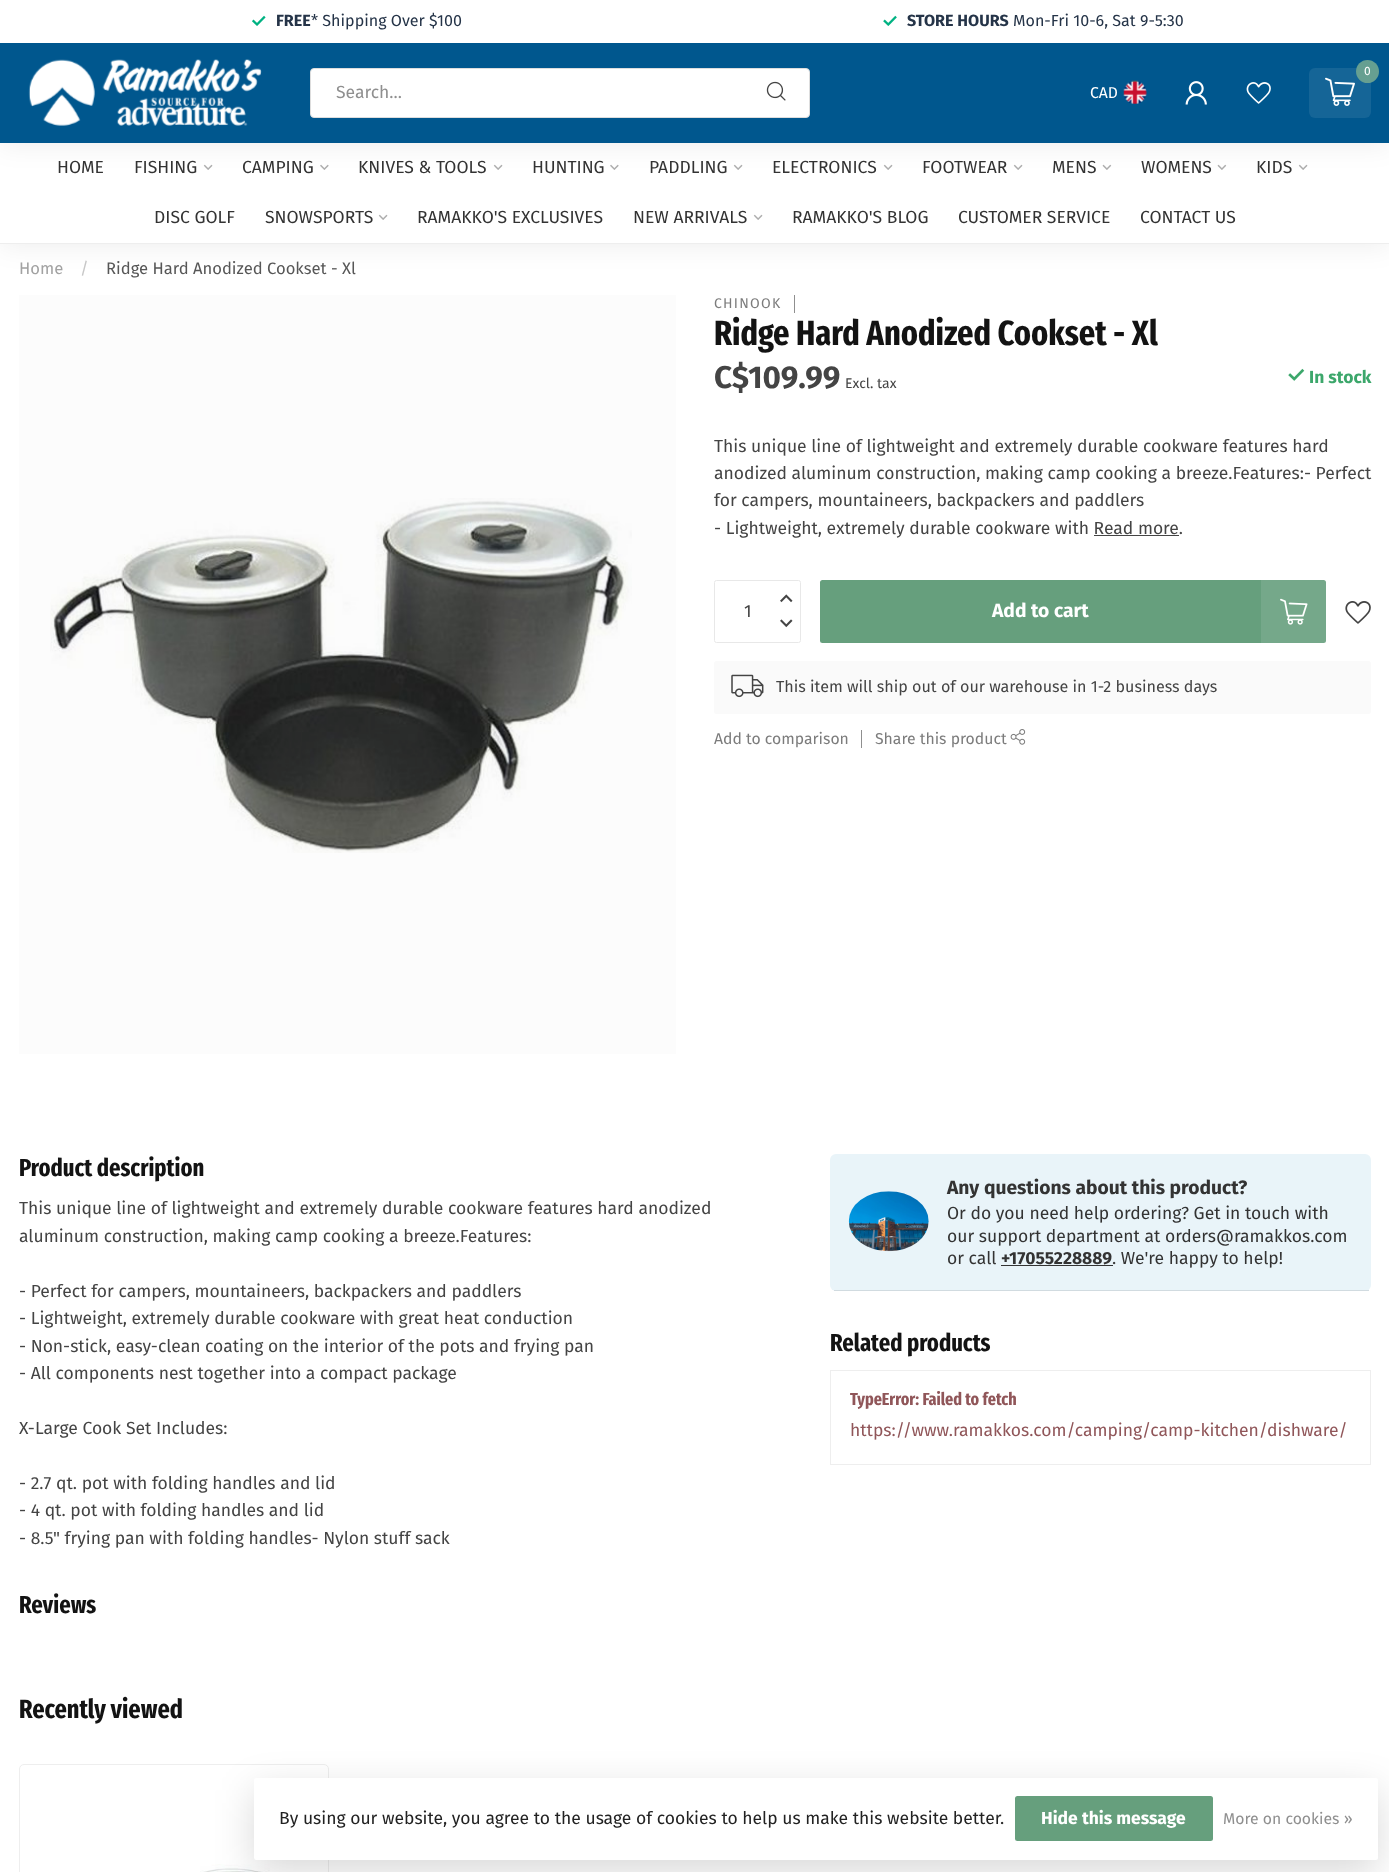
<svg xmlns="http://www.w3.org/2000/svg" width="1389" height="1872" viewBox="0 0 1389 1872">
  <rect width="100%" height="100%" fill="rgb(255,255,255)"/>
  <rect x="19" y="295" width="657" height="759" fill="rgb(252,252,252)"/>
  <rect x="0" y="143" width="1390" height="101" fill="rgba(0,0,0,0.08)" filter="blur(14px)"/>
  <rect x="0" y="143" width="1389" height="100" fill="rgb(255,255,255)"/>
  <image x="203" y="164" width="10" height="6" href="pic9.png"/>
  <image x="320" y="164" width="9" height="6" href="pic10.png"/>
  <image x="493" y="164" width="10" height="6" href="pic9.png"/>
  <image x="610" y="164" width="9" height="6" href="pic10.png"/>
  <image x="733" y="164" width="10" height="6" href="pic9.png"/>
  <image x="883" y="164" width="10" height="6" href="pic9.png"/>
  <image x="1013" y="164" width="10" height="6" href="pic9.png"/>
  <image x="1102" y="164" width="10" height="6" href="pic11.png"/>
  <image x="1217" y="164" width="10" height="6" href="pic11.png"/>
  <image x="1298" y="164" width="10" height="6" href="pic9.png"/>
  <rect x="0" y="0" width="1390" height="143" fill="rgba(0,0,0,0.08)" filter="blur(14px)"/>
  <rect x="0" y="43" width="1389" height="100" fill="rgb(0,87,142)"/>
  <rect x="0" y="0" width="1389" height="43" fill="rgb(255,255,255)"/>
  <image x="252" y="15" width="14" height="11" href="pic1.png"/>
  <text x="276" y="26" font-family="Fira Sans" font-size="16.1" font-weight="bold" fill="rgb(37,52,72)">FREE</text>
  <text x="311" y="26" font-family="Fira Sans" font-size="16.1" fill="rgb(37,52,72)">* Shipping Over $100</text>
  <image x="883" y="15" width="14" height="11" href="pic2.png"/>
  <text x="907" y="26" font-family="Fira Sans" font-size="16.1" font-weight="bold" fill="rgb(37,52,72)">STORE HOURS</text>
  <text x="1013" y="26" font-family="Fira Sans" font-size="16.1" fill="rgb(37,52,72)">Mon-Fri 10-6, Sat 9-5:30</text>
  <image x="28" y="59" width="234" height="67" href="pic3.png"/>
  <rect x="310.5" y="68.5" width="499" height="49" rx="3.5" fill="rgb(255,255,255)" stroke="rgb(221,221,221)"/>
  <text x="336" y="98" font-family="Fira Sans" font-size="17.5" fill="rgb(143,143,143)">Search...</text>
  <image x="766" y="81" width="20" height="20" href="pic4.png"/>
  <rect x="1309" y="68" width="62" height="50" rx="6" fill="rgb(21,101,151)"/>
  <circle cx="1367.5" cy="71.5" r="11.5" fill="rgb(102,159,145)"/>
  <text x="1364" y="75" font-family="Fira Sans" font-size="12" fill="rgb(255,255,255)">0</text>
  <image x="1325" y="77" width="30" height="29" href="pic5.png"/>
  <text x="1090" y="98" font-family="Fira Sans" font-size="15.75" fill="rgb(255,255,255)">CAD</text>
  <image x="1123" y="80" width="24" height="24" href="pic6.png"/>
  <image x="1185" y="81" width="22" height="24" href="pic7.png"/>
  <image x="1246" y="82" width="25" height="22" href="pic8.png"/>
  <rect x="0" y="243" width="1389" height="1" fill="rgb(238,238,238)"/>
  <g font-family="Fira Sans" font-size="17.5" fill="rgb(51,51,51)">
    <text x="57" y="173">HOME</text>
    <text x="134" y="173">FISHING</text>
    <text x="242" y="173">CAMPING</text>
    <text x="358" y="173">KNIVES &amp; TOOLS</text>
    <text x="532" y="173">HUNTING</text>
    <text x="649" y="173">PADDLING</text>
    <text x="772" y="173">ELECTRONICS</text>
    <text x="922" y="173">FOOTWEAR</text>
    <text x="1052" y="173">MENS</text>
    <text x="1141" y="173">WOMENS</text>
    <text x="1256" y="173">KIDS</text>
    <text x="154" y="223">DISC GOLF</text>
    <text x="265" y="223">SNOWSPORTS</text>
  </g>
  <image x="378" y="214" width="10" height="6" href="pic9.png"/>
  <g font-family="Fira Sans" font-size="17.5" fill="rgb(51,51,51)">
    <text x="417" y="223">RAMAKKO'S EXCLUSIVES</text>
    <text x="633" y="223">NEW ARRIVALS</text>
  </g>
  <image x="753" y="214" width="10" height="6" href="pic9.png"/>
  <g font-family="Fira Sans" font-size="17.5" fill="rgb(51,51,51)">
    <text x="792" y="223">RAMAKKO'S BLOG</text>
    <text x="958" y="223">CUSTOMER SERVICE</text>
    <text x="1140" y="223">CONTACT US</text>
  </g>
  <text x="19" y="274" font-family="Fira Sans" font-size="16.6" fill="rgb(162,162,162)">Home</text>
  <text x="80" y="274" font-family="Fira Sans" font-size="16.6" fill="rgb(199,199,199)">/</text>
  <text x="106" y="274" font-family="Fira Sans" font-size="16.6" fill="rgb(87,87,87)">Ridge Hard Anodized Cookset - Xl</text>
  <image x="50" y="498" width="582" height="355" href="pic12.png"/>
  <text x="714" y="308" font-family="Fira Sans" font-size="14" letter-spacing="1.25" fill="rgb(124,124,124)">CHINOOK</text>
  <rect x="794" y="295" width="1" height="18" fill="rgb(143,143,143)"/>
  <text x="714" y="345" font-family="Fira Sans Extra Condensed" font-size="35" font-weight="bold" fill="rgb(19,19,19)">Ridge Hard Anodized Cookset - Xl</text>
  <text x="714" y="388" font-family="Fira Sans" font-size="31.5" font-weight="bold" fill="rgb(68,68,68)">C$109.99</text>
  <text x="845" y="388" font-family="Fira Sans" font-size="14" fill="rgb(68,68,68)">Excl. tax</text>
  <image x="1288" y="368" width="17" height="13" href="pic13.png"/>
  <text x="1309" y="383" font-family="Fira Sans" font-size="17.5" font-weight="bold" fill="rgb(60,167,107)">In stock</text>
  <g font-family="Fira Sans" font-size="17.5" fill="rgb(68,68,68)">
    <text>
      <tspan x="714" y="452">This unique line of lightweight and extremely durable cookware features hard</tspan>
      <tspan x="714" y="479">anodized aluminum construction, making camp cooking a breeze.Features:- Perfect</tspan>
      <tspan x="714" y="506">for campers, mountaineers, backpackers and paddlers</tspan>
      <tspan x="714" y="534">- Lightweight, extremely durable cookware with Read more.</tspan>
    </text>
  </g>
  <rect x="1094" y="535" width="85" height="1" fill="rgb(68,68,68)"/>
  <rect x="714.5" y="580.5" width="86" height="62" rx="2" fill="none" stroke="rgb(232,232,232)"/>
  <image x="780" y="594" width="13" height="9" href="pic14.png"/>
  <text x="744" y="617" font-family="Fira Sans" font-size="17.5" fill="rgb(68,68,68)">1</text>
  <image x="780" y="619" width="13" height="9" href="pic15.png"/>
  <rect x="820" y="580" width="506" height="63" rx="2.5" fill="rgb(102,159,125)"/>
  <text x="992" y="617" font-family="Fira Sans" font-size="19.25" font-weight="bold" fill="rgb(255,255,255)">Add to cart</text>
  <image x="1280" y="598" width="28" height="27" href="pic16.png"/>
  <rect x="1261" y="580" width="65" height="63" fill="rgba(255,255,255,0.1)"/>
  <image x="1345" y="601" width="26" height="23" href="pic17.png"/>
  <rect x="714" y="661" width="657" height="53" rx="2.5" fill="rgb(250,250,250)"/>
  <image x="731" y="674" width="33" height="24" href="pic18.png"/>
  <text x="776" y="692" font-family="Fira Sans" font-size="16.1" fill="rgb(68,68,68)">This item will ship out of our warehouse in 1-2 business days</text>
  <text x="714" y="744" font-family="Fira Sans" font-size="15.75" fill="rgb(124,124,124)">Add to comparison</text>
  <rect x="861" y="730" width="1" height="18" fill="rgb(143,143,143)"/>
  <text x="875" y="744" font-family="Fira Sans" font-size="15.75" fill="rgb(124,124,124)">Share this product</text>
  <image x="1010" y="729" width="16" height="16" href="pic19.png"/>
  <text x="19" y="1176" font-family="Fira Sans Extra Condensed" font-size="24.5" font-weight="bold" fill="rgb(19,19,19)">Product description</text>
  <g font-family="Fira Sans" font-size="17.5" fill="rgb(68,68,68)">
    <text>
      <tspan x="19" y="1214">This unique line of lightweight and extremely durable cookware features hard anodized</tspan>
      <tspan x="19" y="1242">aluminum construction, making camp cooking a breeze.Features:</tspan>
    </text>
    <text>
      <tspan x="19" y="1297">- Perfect for campers, mountaineers, backpackers and paddlers</tspan>
      <tspan x="19" y="1324">- Lightweight, extremely durable cookware with great heat conduction</tspan>
      <tspan x="19" y="1352">- Non-stick, easy-clean coating on the interior of the pots and frying pan</tspan>
      <tspan x="19" y="1379">- All components nest together into a compact package</tspan>
    </text>
    <text x="19" y="1434">X-Large Cook Set Includes:</text>
    <text>
      <tspan x="19" y="1489">- 2.7 qt. pot with folding handles and lid</tspan>
      <tspan x="19" y="1516">- 4 qt. pot with folding handles and lid</tspan>
      <tspan x="19" y="1544">- 8.5" frying pan with folding handles- Nylon stuff sack</tspan>
    </text>
  </g>
  <text x="19" y="1613" font-family="Fira Sans Extra Condensed" font-size="24.5" font-weight="bold" fill="rgb(19,19,19)">Reviews</text>
  <rect x="830" y="1154" width="541" height="137" rx="6" fill="rgb(233,244,249)"/>
  <rect x="834" y="1290" width="535" height="1" fill="rgb(209,219,224)"/>
  <image x="848" y="1191" width="81" height="61" href="pic20.png"/>
  <text x="947" y="1194" font-family="Fira Sans" font-size="19.25" font-weight="bold" fill="rgb(51,51,51)">Any questions about this product?</text>
  <g font-family="Fira Sans" font-size="17.5" fill="rgb(51,51,51)">
    <text>
      <tspan x="947" y="1219">Or do you need help ordering? Get in touch with</tspan>
      <tspan x="947" y="1242">our support department at orders@ramakkos.com</tspan>
      <tspan x="947" y="1264">or call</tspan>
    </text>
  </g>
  <text x="1001" y="1264" font-family="Fira Sans" font-size="17.5" font-weight="bold" fill="rgb(51,51,51)">+17055228889</text>
  <rect x="1001" y="1265" width="112" height="1" fill="rgb(51,51,51)"/>
  <text x="1112" y="1264" font-family="Fira Sans" font-size="17.5" fill="rgb(51,51,51)">. We're happy to help!</text>
  <text x="830" y="1351" font-family="Fira Sans Extra Condensed" font-size="24.5" font-weight="bold" fill="rgb(19,19,19)">Related products</text>
  <rect x="830.5" y="1370.5" width="540" height="94" fill="none" stroke="rgb(238,238,238)"/>
  <text x="850" y="1405" font-family="Fira Sans Extra Condensed" font-size="17.5" font-weight="bold" fill="rgb(144,86,89)">TypeError: Failed to fetch</text>
  <text x="850" y="1436" font-family="Fira Sans" font-size="17.5" fill="rgb(144,86,89)">https://www.ramakkos.com/camping/camp-kitchen/dishware/</text>
  <text x="19" y="1718" font-family="Fira Sans Extra Condensed" font-size="26.25" font-weight="bold" fill="rgb(19,19,19)">Recently viewed</text>
  <rect x="19.5" y="1764.5" width="309" height="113" rx="4.5" fill="none" stroke="rgb(238,238,238)"/>
  <image x="200" y="1864" width="70" height="8" href="pic21.png"/>
  <rect x="254" y="1790" width="1124" height="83" rx="2.5" fill="rgba(0,0,0,0.15)" filter="blur(19px)"/>
  <rect x="254" y="1778" width="1124" height="82" rx="2.5" fill="rgb(255,255,255)"/>
  <text x="279" y="1824" font-family="Fira Sans" font-size="17.5" fill="rgb(34,34,34)">By using our website, you agree to the usage of cookies to help us make this website better.</text>
  <rect x="1015" y="1796" width="198" height="45" rx="2.5" fill="rgb(102,159,125)"/>
  <text x="1041" y="1824" font-family="Fira Sans" font-size="17.5" font-weight="bold" fill="rgb(255,255,255)">Hide this message</text>
  <text x="1223" y="1824" font-family="Fira Sans" font-size="15.75" fill="rgb(143,143,143)">More on cookies »</text>
</svg>
